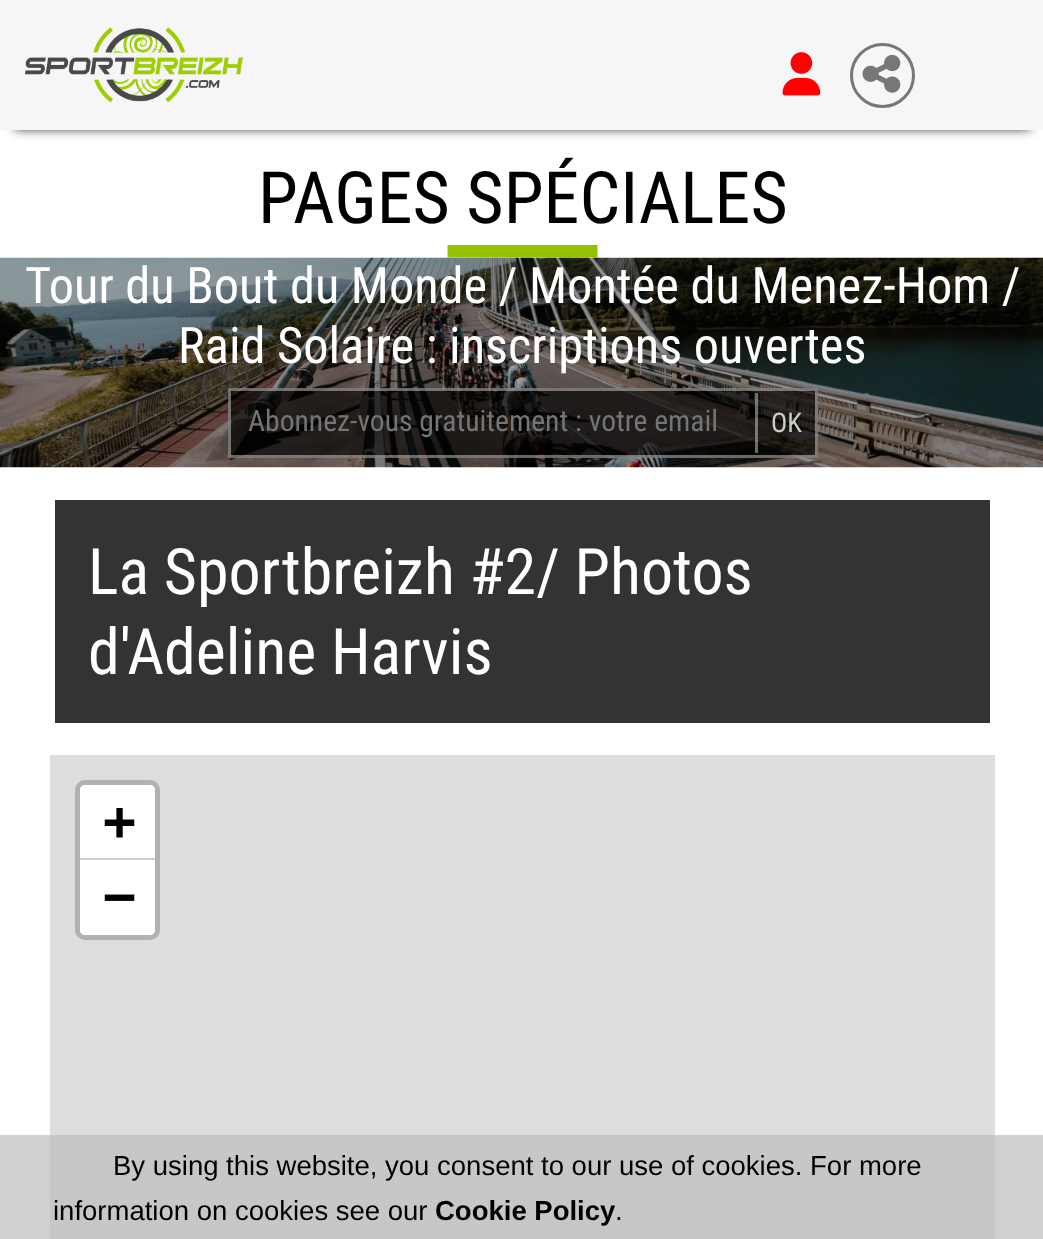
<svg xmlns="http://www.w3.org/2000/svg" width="1043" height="1239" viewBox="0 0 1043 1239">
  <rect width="100%" height="100%" fill="rgb(255,255,255)"/>
  <rect x="0" y="1135" width="1043" height="104" fill="rgb(208,208,208)"/>
  <rect x="15" y="28" width="1015" height="100" fill="rgb(0,0,0)" filter="blur(6px)"/>
  <rect x="0" y="0" width="1043" height="130" fill="rgb(246,246,248)"/>
  <image x="25" y="27" width="218" height="76" href="pic1.png"/>
  <image x="782" y="52" width="39" height="44" href="pic2.png"/>
  <circle cx="882.5" cy="75.5" r="31" fill="none" stroke="rgb(119,119,119)" stroke-width="3"/>
  <image x="862" y="54" width="39" height="39" href="pic3.png"/>
  <image x="447" y="245" width="151" height="13" href="pic4.png"/>
  <text x="258" y="223" font-family="Roboto Condensed" font-size="72" fill="rgb(0,0,0)">PAGES SPÉCIALES</text>
  <image x="0" y="257" width="1043" height="211" href="pic5.png"/>
  <g font-family="Roboto Condensed" font-size="50.4" fill="rgb(255,255,255)">
    <text x="25" y="303">Tour du Bout du Monde / Montée du Menez-Hom /</text>
    <text x="178" y="363">Raid Solaire : inscriptions ouvertes</text>
  </g>
  <rect x="228" y="388" width="590" height="70" fill="rgba(0,0,0,0.65)"/>
  <rect x="229.5" y="389.5" width="587" height="67" fill="none" stroke="rgba(255,255,255,0.4)" stroke-width="3"/>
  <text x="248" y="431" font-family="Roboto Condensed" font-size="29.6" fill="rgb(117,117,117)">Abonnez-vous gratuitement : votre email</text>
  <rect x="755" y="393" width="3" height="60" fill="rgba(255,255,255,0.4)"/>
  <text x="771" y="432" font-family="Roboto Condensed" font-size="27" fill="rgb(204,204,204)">OK</text>
  <rect x="55" y="500" width="935" height="223" fill="rgb(51,51,51)"/>
  <g font-family="Roboto Condensed" font-size="64" fill="rgb(255,255,255)">
    <text>
      <tspan x="88" y="594">La Sportbreizh #2/ Photos</tspan>
      <tspan x="88" y="674">d'Adeline Harvis</tspan>
    </text>
  </g>
  <rect x="50" y="755" width="945" height="380" fill="rgb(221,221,221)"/>
  <rect x="50" y="1135" width="945" height="104" fill="rgb(199,199,199)"/>
  <rect x="77.5" y="782.5" width="80" height="155" rx="7.5" fill="none" stroke="rgb(177,177,177)" stroke-width="5"/>
  <path d="M85 785H150C153 785 155 787 155 790V860H80V790C80 787 82 785 85 785Z" fill="rgb(255,255,255)"/>
  <rect x="80" y="858" width="75" height="2" fill="rgb(204,204,204)"/>
  <text x="103" y="840" font-family="DejaVu Sans Mono" font-size="55" font-weight="bold" fill="rgb(0,0,0)">+</text>
  <path d="M80 860H155V930C155 933 153 935 150 935H85C82 935 80 933 80 930Z" fill="rgb(255,255,255)"/>
  <text x="103" y="915" font-family="DejaVu Sans Mono" font-size="55" font-weight="bold" fill="rgb(0,0,0)">−</text>
  <g font-family="Liberation Sans" font-size="27.5" fill="rgb(0,0,0)">
    <text x="113" y="1175">By using this website, you consent to our use of cookies. For more</text>
    <text x="53" y="1220">information on cookies see our</text>
  </g>
  <text x="435" y="1220" font-family="Liberation Sans" font-size="27.5" font-weight="bold" fill="rgb(0,0,0)">Cookie Policy</text>
  <text x="615" y="1220" font-family="Liberation Sans" font-size="27.5" fill="rgb(0,0,0)">.</text>
</svg>
